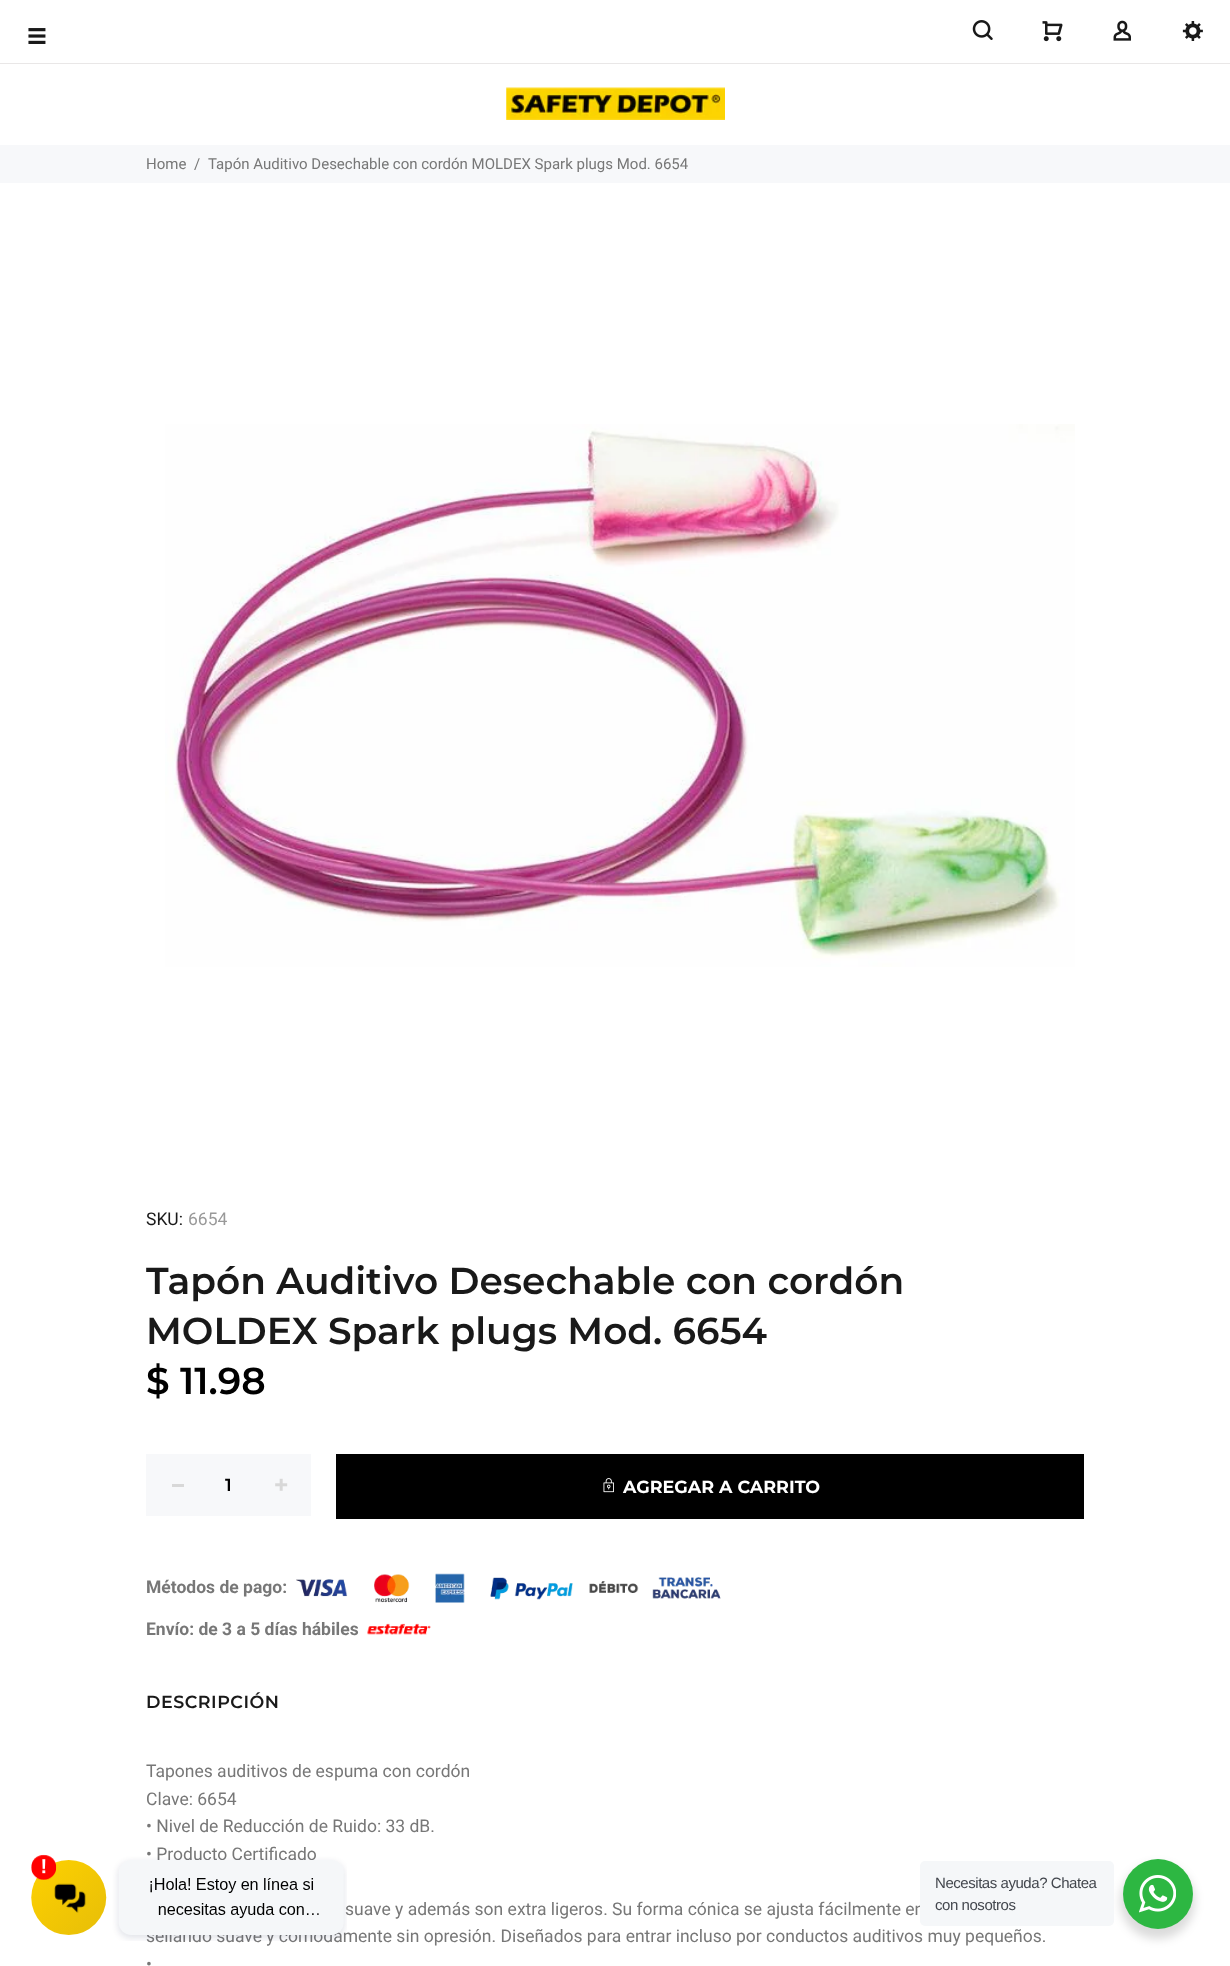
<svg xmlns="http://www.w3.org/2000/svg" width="1230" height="1966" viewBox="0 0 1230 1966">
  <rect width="100%" height="100%" fill="rgb(255,255,255)"/>
  <image x="28" y="28" width="18" height="16" href="pic1.png"/>
  <image x="972" y="20" width="21" height="20" href="pic2.png"/>
  <image x="1042" y="21" width="21" height="21" href="pic3.png"/>
  <image x="1113" y="20" width="18" height="21" href="pic4.png"/>
  <image x="1182" y="21" width="21" height="20" href="pic5.png"/>
  <rect x="0" y="63" width="1230" height="1" fill="rgb(233,231,231)"/>
  <image x="506" y="87" width="219" height="33" href="pic6.png"/>
  <rect x="0" y="145" width="1230" height="38" fill="rgb(247,248,250)"/>
  <g font-family="Roboto" font-size="15" fill="rgb(119,119,119)">
    <text x="146" y="169">Home</text>
    <text x="194" y="169">/</text>
    <text x="208" y="169">Tapón Auditivo Desechable con cordón MOLDEX Spark plugs Mod. 6654</text>
  </g>
  <image x="165" y="424" width="910" height="543" href="pic7.png"/>
  <text x="146" y="1225" font-family="Roboto" font-size="17.5" fill="rgb(25,25,25)">SKU:</text>
  <text x="188" y="1225" font-family="Roboto" font-size="17.5" fill="rgb(153,153,153)">6654</text>
  <g font-family="Montserrat" font-size="37.5" font-weight="600" fill="rgb(25,25,25)">
    <text>
      <tspan x="146" y="1294">Tapón Auditivo Desechable con cordón</tspan>
      <tspan x="146" y="1344">MOLDEX Spark plugs Mod. 6654</tspan>
    </text>
  </g>
  <text x="146" y="1394" font-family="Montserrat" font-size="37.5" font-weight="600" fill="rgb(0,0,0)">$ 11.98</text>
  <rect x="146" y="1454" width="165" height="62" fill="rgb(247,248,250)"/>
  <rect x="172" y="1484" width="12" height="3" fill="rgb(216,216,216)"/>
  <text x="225" y="1491" font-family="Montserrat" font-size="17.5" font-weight="600" fill="rgb(0,0,0)">1</text>
  <image x="275" y="1478" width="13" height="13" href="pic8.png"/>
  <rect x="336" y="1454" width="748" height="65" fill="rgb(0,0,0)"/>
  <image x="603" y="1478" width="11" height="15" href="pic9.png"/>
  <text x="623" y="1493" font-family="Montserrat" font-size="17.5" font-weight="bold" fill="rgb(255,255,255)">AGREGAR A CARRITO</text>
  <text x="146" y="1593" font-family="Roboto" font-size="17.5" font-weight="bold" fill="rgb(119,119,119)">Métodos de pago:</text>
  <image x="296" y="1573" width="425" height="30" href="pic10.png"/>
  <text x="146" y="1635" font-family="Roboto" font-size="17.5" font-weight="bold" fill="rgb(119,119,119)">Envío: de 3 a 5 días hábiles</text>
  <image x="367" y="1623" width="64" height="12" href="pic11.png"/>
  <text x="146" y="1708" font-family="Montserrat" font-size="17.5" font-weight="600" letter-spacing="0.5" fill="rgb(25,25,25)">DESCRIPCIÓN</text>
  <g font-family="Roboto" font-size="17.5" fill="rgb(119,119,119)">
    <text>
      <tspan x="146" y="1777">Tapones auditivos de espuma con cordón</tspan>
      <tspan x="146" y="1805">Clave: 6654</tspan>
      <tspan x="146" y="1832">• Nivel de Reducción de Ruido: 33 dB.</tspan>
      <tspan x="146" y="1860">• Producto Certificado</tspan>
    </text>
    <text x="345" y="1915">suave y además son extra ligeros. Su forma cónica se ajusta fácilmente en</text>
    <text>
      <tspan x="146" y="1942">sellando suave y cómodamente sin opresión. Diseñados para entrar incluso por conductos auditivos muy pequeños.</tspan>
      <tspan x="146" y="1970">•</tspan>
    </text>
  </g>
  <image x="31" y="1854" width="316" height="87" href="pic12.png"/>
  <rect x="1120" y="1864" width="75" height="75" rx="37.5" fill="rgba(0,0,0,0.14)" filter="blur(5px)"/>
  <rect x="920" y="1861" width="194" height="65" rx="5" fill="rgb(245,247,249)"/>
  <g font-family="Liberation Sans" font-size="15" letter-spacing="-0.45" fill="rgb(67,71,78)">
    <text>
      <tspan x="935" y="1888">Necesitas ayuda? Chatea</tspan>
      <tspan x="935" y="1910">con nosotros</tspan>
    </text>
  </g>
  <circle cx="1158" cy="1894" r="35" fill="rgb(45,183,66)"/>
  <image x="1139" y="1875" width="37" height="38" href="pic13.png"/>
</svg>
